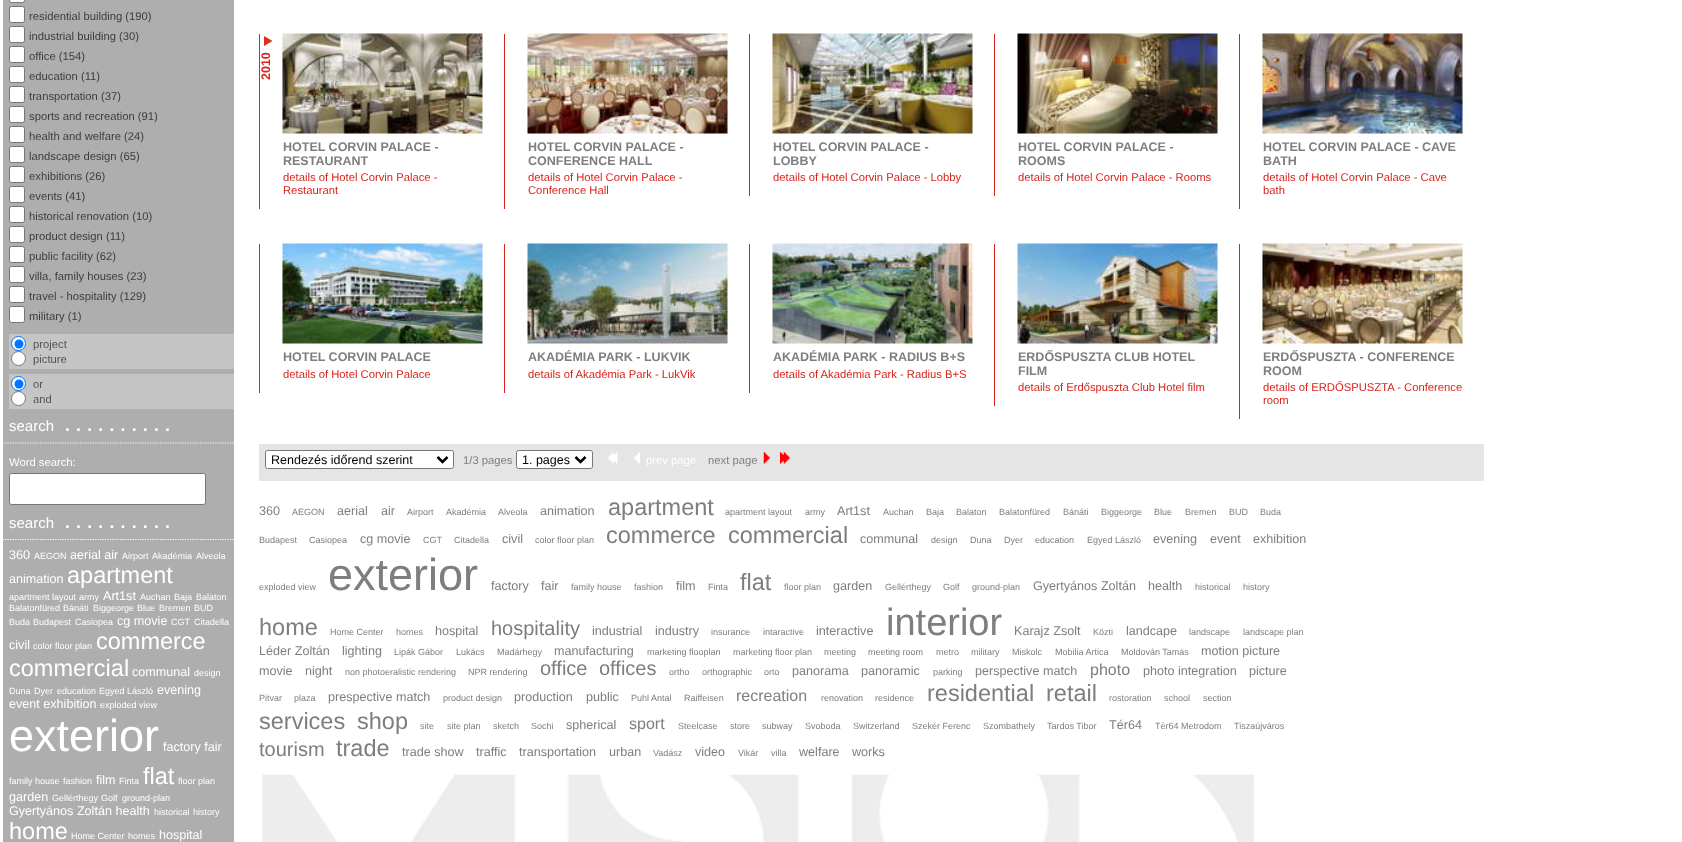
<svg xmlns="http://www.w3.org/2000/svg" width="1682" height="842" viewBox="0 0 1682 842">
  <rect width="100%" height="100%" fill="rgb(255,255,255)"/>
  <rect x="3" y="0" width="231" height="842" fill="rgb(174,174,174)"/>
  <path d="M2.5 443H234" fill="none" stroke="rgb(255,255,255)" stroke-width="1.2" stroke-dasharray="1.25 1.25"/>
  <rect x="9.5" y="-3.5" width="15" height="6" rx="2" fill="rgb(255,255,255)" stroke="rgb(118,118,118)"/>
  <rect x="9.5" y="6.5" width="15" height="16" rx="2" fill="rgb(255,255,255)" stroke="rgb(118,118,118)"/>
  <text x="29" y="20" font-family="Liberation Sans" font-size="11.25" fill="rgb(61,61,61)">residential building (190)</text>
  <rect x="9.5" y="26.5" width="15" height="16" rx="2" fill="rgb(255,255,255)" stroke="rgb(118,118,118)"/>
  <text x="29" y="40" font-family="Liberation Sans" font-size="11.25" fill="rgb(61,61,61)">industrial building (30)</text>
  <rect x="9.5" y="46.5" width="15" height="16" rx="2" fill="rgb(255,255,255)" stroke="rgb(118,118,118)"/>
  <text x="29" y="60" font-family="Liberation Sans" font-size="11.25" fill="rgb(61,61,61)">office (154)</text>
  <rect x="9.5" y="66.5" width="15" height="16" rx="2" fill="rgb(255,255,255)" stroke="rgb(118,118,118)"/>
  <text x="29" y="80" font-family="Liberation Sans" font-size="11.25" fill="rgb(61,61,61)">education (11)</text>
  <rect x="9.5" y="86.5" width="15" height="16" rx="2" fill="rgb(255,255,255)" stroke="rgb(118,118,118)"/>
  <text x="29" y="100" font-family="Liberation Sans" font-size="11.25" fill="rgb(61,61,61)">transportation (37)</text>
  <rect x="9.5" y="106.5" width="15" height="16" rx="2" fill="rgb(255,255,255)" stroke="rgb(118,118,118)"/>
  <text x="29" y="120" font-family="Liberation Sans" font-size="11.25" fill="rgb(61,61,61)">sports and recreation (91)</text>
  <rect x="9.5" y="126.5" width="15" height="16" rx="2" fill="rgb(255,255,255)" stroke="rgb(118,118,118)"/>
  <text x="29" y="140" font-family="Liberation Sans" font-size="11.25" fill="rgb(61,61,61)">health and welfare (24)</text>
  <rect x="9.5" y="146.5" width="15" height="16" rx="2" fill="rgb(255,255,255)" stroke="rgb(118,118,118)"/>
  <text x="29" y="160" font-family="Liberation Sans" font-size="11.25" fill="rgb(61,61,61)">landscape design (65)</text>
  <rect x="9.5" y="166.5" width="15" height="16" rx="2" fill="rgb(255,255,255)" stroke="rgb(118,118,118)"/>
  <text x="29" y="180" font-family="Liberation Sans" font-size="11.25" fill="rgb(61,61,61)">exhibitions (26)</text>
  <rect x="9.5" y="186.5" width="15" height="16" rx="2" fill="rgb(255,255,255)" stroke="rgb(118,118,118)"/>
  <text x="29" y="200" font-family="Liberation Sans" font-size="11.25" fill="rgb(61,61,61)">events (41)</text>
  <rect x="9.5" y="206.5" width="15" height="16" rx="2" fill="rgb(255,255,255)" stroke="rgb(118,118,118)"/>
  <text x="29" y="220" font-family="Liberation Sans" font-size="11.25" fill="rgb(61,61,61)">historical renovation (10)</text>
  <rect x="9.5" y="226.5" width="15" height="16" rx="2" fill="rgb(255,255,255)" stroke="rgb(118,118,118)"/>
  <text x="29" y="240" font-family="Liberation Sans" font-size="11.25" fill="rgb(61,61,61)">product design (11)</text>
  <rect x="9.5" y="246.5" width="15" height="16" rx="2" fill="rgb(255,255,255)" stroke="rgb(118,118,118)"/>
  <text x="29" y="260" font-family="Liberation Sans" font-size="11.25" fill="rgb(61,61,61)">public facility (62)</text>
  <rect x="9.5" y="266.5" width="15" height="16" rx="2" fill="rgb(255,255,255)" stroke="rgb(118,118,118)"/>
  <text x="29" y="280" font-family="Liberation Sans" font-size="11.25" fill="rgb(61,61,61)">villa, family houses (23)</text>
  <rect x="9.5" y="286.5" width="15" height="16" rx="2" fill="rgb(255,255,255)" stroke="rgb(118,118,118)"/>
  <text x="29" y="300" font-family="Liberation Sans" font-size="11.25" fill="rgb(61,61,61)">travel - hospitality (129)</text>
  <rect x="9.5" y="306.5" width="15" height="16" rx="2" fill="rgb(255,255,255)" stroke="rgb(118,118,118)"/>
  <text x="29" y="320" font-family="Liberation Sans" font-size="11.25" fill="rgb(61,61,61)">military (1)</text>
  <rect x="9" y="334" width="225" height="35" fill="rgb(197,197,197)"/>
  <circle cx="18.5" cy="343.5" r="7" fill="rgb(255,255,255)" stroke="rgb(0,117,255)"/>
  <circle cx="19" cy="344" r="4.5" fill="rgb(0,117,255)"/>
  <text x="33" y="348" font-family="Liberation Sans" font-size="11.25" fill="rgb(84,84,84)">project</text>
  <circle cx="18.5" cy="358.5" r="7" fill="rgb(255,255,255)" stroke="rgb(118,118,118)"/>
  <text x="33" y="363" font-family="Liberation Sans" font-size="11.25" fill="rgb(84,84,84)">picture</text>
  <rect x="9" y="374" width="225" height="35" fill="rgb(197,197,197)"/>
  <circle cx="18.5" cy="383.5" r="7" fill="rgb(255,255,255)" stroke="rgb(0,117,255)"/>
  <circle cx="19" cy="384" r="4.5" fill="rgb(0,117,255)"/>
  <text x="33" y="388" font-family="Liberation Sans" font-size="11.25" fill="rgb(84,84,84)">or</text>
  <circle cx="18.5" cy="398.5" r="7" fill="rgb(255,255,255)" stroke="rgb(118,118,118)"/>
  <text x="33" y="403" font-family="Liberation Sans" font-size="11.25" fill="rgb(84,84,84)">and</text>
  <text x="9" y="431" font-family="Liberation Sans" font-size="15" fill="rgb(255,255,255)">search</text>
  <text x="65" y="431" font-family="Liberation Sans" font-size="17.5" font-weight="bold" letter-spacing="6.25" fill="rgb(255,255,255)">..........</text>
  <path d="M2.5 539.5H234" fill="none" stroke="rgb(255,255,255)" stroke-width="1.2" stroke-dasharray="1.25 1.25"/>
  <text x="9" y="466" font-family="Liberation Sans" font-size="11.25" fill="rgb(255,255,255)">Word search:</text>
  <rect x="9.5" y="473.5" width="196" height="31" rx="2" fill="rgb(255,255,255)" stroke="rgb(118,118,118)"/>
  <text x="9" y="528" font-family="Liberation Sans" font-size="15" fill="rgb(255,255,255)">search</text>
  <text x="65" y="528" font-family="Liberation Sans" font-size="17.5" font-weight="bold" letter-spacing="6.25" fill="rgb(255,255,255)">..........</text>
  <text x="9" y="559" font-family="Liberation Sans" font-size="12.6" fill="rgb(255,255,255)">360</text>
  <text x="34" y="559" font-family="Liberation Sans" font-size="9" fill="rgb(255,255,255)">AEGON</text>
  <text x="70" y="559" font-family="Liberation Sans" font-size="12.6" fill="rgb(255,255,255)">aerial air</text>
  <g font-family="Liberation Sans" font-size="9" fill="rgb(255,255,255)">
    <text x="122" y="559">Airport</text>
    <text x="152" y="559">Akadémia</text>
    <text x="196" y="559">Alveola</text>
  </g>
  <text x="9" y="583" font-family="Liberation Sans" font-size="12.6" fill="rgb(255,255,255)">animation</text>
  <text x="67" y="583" font-family="Liberation Sans" font-size="23.5" fill="rgb(255,255,255)">apartment</text>
  <g font-family="Liberation Sans" font-size="9" fill="rgb(255,255,255)">
    <text x="9" y="600">apartment layout</text>
    <text x="79" y="600">army</text>
  </g>
  <text x="103" y="600" font-family="Liberation Sans" font-size="12.6" fill="rgb(255,255,255)">Art1st</text>
  <g font-family="Liberation Sans" font-size="9" fill="rgb(255,255,255)">
    <text x="140" y="600">Auchan</text>
    <text x="174" y="600">Baja</text>
    <text x="196" y="600">Balaton</text>
    <text x="9" y="611">Balatonfüred</text>
    <text x="63" y="611">Bánáti</text>
    <text x="93" y="611">Biggeorge</text>
    <text x="137" y="611">Blue</text>
    <text x="159" y="611">Bremen</text>
    <text x="194" y="611">BUD</text>
    <text x="9" y="625">Buda</text>
    <text x="33" y="625">Budapest</text>
    <text x="75" y="625">Casiopea</text>
  </g>
  <text x="117" y="625" font-family="Liberation Sans" font-size="12.6" fill="rgb(255,255,255)">cg movie</text>
  <g font-family="Liberation Sans" font-size="9" fill="rgb(255,255,255)">
    <text x="171" y="625">CGT</text>
    <text x="194" y="625">Citadella</text>
  </g>
  <text x="9" y="649" font-family="Liberation Sans" font-size="12.6" fill="rgb(255,255,255)">civil</text>
  <text x="33" y="649" font-family="Liberation Sans" font-size="9" fill="rgb(255,255,255)">color floor plan</text>
  <g font-family="Liberation Sans" font-size="23.5" fill="rgb(255,255,255)">
    <text x="96" y="649">commerce</text>
    <text x="9" y="676">commercial</text>
  </g>
  <text x="132" y="676" font-family="Liberation Sans" font-size="12.6" fill="rgb(255,255,255)">communal</text>
  <g font-family="Liberation Sans" font-size="9" fill="rgb(255,255,255)">
    <text x="194" y="676">design</text>
    <text x="9" y="694">Duna</text>
    <text x="34" y="694">Dyer</text>
    <text x="57" y="694">education</text>
    <text x="99" y="694">Egyed László</text>
  </g>
  <g font-family="Liberation Sans" font-size="12.6" fill="rgb(255,255,255)">
    <text x="157" y="694">evening</text>
    <text x="9" y="708">event exhibition</text>
  </g>
  <text x="100" y="708" font-family="Liberation Sans" font-size="9" fill="rgb(255,255,255)">exploded view</text>
  <text x="9" y="751" font-family="Liberation Sans" font-size="45" fill="rgb(255,255,255)">exterior</text>
  <text x="163" y="751" font-family="Liberation Sans" font-size="12.6" fill="rgb(255,255,255)">factory fair</text>
  <g font-family="Liberation Sans" font-size="9" fill="rgb(255,255,255)">
    <text x="9" y="784">family house</text>
    <text x="63" y="784">fashion</text>
  </g>
  <text x="96" y="784" font-family="Liberation Sans" font-size="12.6" fill="rgb(255,255,255)">film</text>
  <text x="119" y="784" font-family="Liberation Sans" font-size="9" fill="rgb(255,255,255)">Finta</text>
  <text x="143" y="784" font-family="Liberation Sans" font-size="23.5" fill="rgb(255,255,255)">flat</text>
  <text x="178" y="784" font-family="Liberation Sans" font-size="9" fill="rgb(255,255,255)">floor plan</text>
  <text x="9" y="801" font-family="Liberation Sans" font-size="12.6" fill="rgb(255,255,255)">garden</text>
  <g font-family="Liberation Sans" font-size="9" fill="rgb(255,255,255)">
    <text x="52" y="801">Gellérthegy</text>
    <text x="101" y="801">Golf</text>
    <text x="122" y="801">ground-plan</text>
  </g>
  <text x="9" y="815" font-family="Liberation Sans" font-size="12.6" fill="rgb(255,255,255)">Gyertyános Zoltán health</text>
  <g font-family="Liberation Sans" font-size="9" fill="rgb(255,255,255)">
    <text x="154" y="815">historical</text>
    <text x="193" y="815">history</text>
  </g>
  <text x="9" y="839" font-family="Liberation Sans" font-size="23.5" fill="rgb(255,255,255)">home</text>
  <g font-family="Liberation Sans" font-size="9" fill="rgb(255,255,255)">
    <text x="71" y="839">Home Center</text>
    <text x="128" y="839">homes</text>
  </g>
  <text x="159" y="839" font-family="Liberation Sans" font-size="12.6" fill="rgb(255,255,255)">hospital</text>
  <rect x="259" y="34" width="1" height="175" fill="rgb(217,34,26)"/>
  <path d="M264 46V36L272.5 41Z" fill="rgb(217,50,26)"/>
  <image x="282" y="33" width="201" height="101" href="pic1.png"/>
  <text x="270" y="80" transform="rotate(-90 270 80)" font-family="Liberation Sans" font-size="12.5" font-weight="bold" fill="rgb(217,34,26)">2010</text>
  <g font-family="Liberation Sans" font-size="12.5" font-weight="bold" fill="rgb(126,126,126)">
    <text>
      <tspan x="283" y="151">HOTEL CORVIN PALACE -</tspan>
      <tspan x="283" y="165">RESTAURANT</tspan>
    </text>
  </g>
  <g font-family="Liberation Sans" font-size="11.25" fill="rgb(217,34,26)">
    <text>
      <tspan x="283" y="181">details of Hotel Corvin Palace -</tspan>
      <tspan x="283" y="194">Restaurant</tspan>
    </text>
  </g>
  <rect x="504" y="34" width="1" height="175" fill="rgb(217,34,26)"/>
  <image x="527" y="33" width="201" height="101" href="pic2.png"/>
  <g font-family="Liberation Sans" font-size="12.5" font-weight="bold" fill="rgb(126,126,126)">
    <text>
      <tspan x="528" y="151">HOTEL CORVIN PALACE -</tspan>
      <tspan x="528" y="165">CONFERENCE HALL</tspan>
    </text>
  </g>
  <g font-family="Liberation Sans" font-size="11.25" fill="rgb(217,34,26)">
    <text>
      <tspan x="528" y="181">details of Hotel Corvin Palace -</tspan>
      <tspan x="528" y="194">Conference Hall</tspan>
    </text>
  </g>
  <rect x="749" y="34" width="1" height="162" fill="rgb(217,34,26)"/>
  <image x="772" y="33" width="201" height="101" href="pic3.png"/>
  <g font-family="Liberation Sans" font-size="12.5" font-weight="bold" fill="rgb(126,126,126)">
    <text>
      <tspan x="773" y="151">HOTEL CORVIN PALACE -</tspan>
      <tspan x="773" y="165">LOBBY</tspan>
    </text>
  </g>
  <text x="773" y="181" font-family="Liberation Sans" font-size="11.25" fill="rgb(217,34,26)">details of Hotel Corvin Palace - Lobby</text>
  <rect x="994" y="34" width="1" height="162" fill="rgb(217,34,26)"/>
  <image x="1017" y="33" width="201" height="101" href="pic4.png"/>
  <g font-family="Liberation Sans" font-size="12.5" font-weight="bold" fill="rgb(126,126,126)">
    <text>
      <tspan x="1018" y="151">HOTEL CORVIN PALACE -</tspan>
      <tspan x="1018" y="165">ROOMS</tspan>
    </text>
  </g>
  <text x="1018" y="181" font-family="Liberation Sans" font-size="11.25" fill="rgb(217,34,26)">details of Hotel Corvin Palace - Rooms</text>
  <rect x="1239" y="34" width="1" height="175" fill="rgb(217,34,26)"/>
  <image x="1262" y="33" width="201" height="101" href="pic5.png"/>
  <g font-family="Liberation Sans" font-size="12.5" font-weight="bold" fill="rgb(126,126,126)">
    <text>
      <tspan x="1263" y="151">HOTEL CORVIN PALACE - CAVE</tspan>
      <tspan x="1263" y="165">BATH</tspan>
    </text>
  </g>
  <g font-family="Liberation Sans" font-size="11.25" fill="rgb(217,34,26)">
    <text>
      <tspan x="1263" y="181">details of Hotel Corvin Palace - Cave</tspan>
      <tspan x="1263" y="194">bath</tspan>
    </text>
  </g>
  <rect x="259" y="244" width="1" height="149" fill="rgb(217,34,26)"/>
  <image x="282" y="243" width="201" height="101" href="pic6.png"/>
  <text x="283" y="361" font-family="Liberation Sans" font-size="12.5" font-weight="bold" fill="rgb(126,126,126)">HOTEL CORVIN PALACE</text>
  <text x="283" y="378" font-family="Liberation Sans" font-size="11.25" fill="rgb(217,34,26)">details of Hotel Corvin Palace</text>
  <rect x="504" y="244" width="1" height="149" fill="rgb(217,34,26)"/>
  <image x="527" y="243" width="201" height="101" href="pic7.png"/>
  <text x="528" y="361" font-family="Liberation Sans" font-size="12.5" font-weight="bold" fill="rgb(126,126,126)">AKADÉMIA PARK - LUKVIK</text>
  <text x="528" y="378" font-family="Liberation Sans" font-size="11.25" fill="rgb(217,34,26)">details of Akadémia Park - LukVik</text>
  <rect x="749" y="244" width="1" height="149" fill="rgb(217,34,26)"/>
  <image x="772" y="243" width="201" height="101" href="pic8.png"/>
  <text x="773" y="361" font-family="Liberation Sans" font-size="12.5" font-weight="bold" fill="rgb(126,126,126)">AKADÉMIA PARK - RADIUS B+S</text>
  <text x="773" y="378" font-family="Liberation Sans" font-size="11.25" fill="rgb(217,34,26)">details of Akadémia Park - Radius B+S</text>
  <rect x="994" y="244" width="1" height="162" fill="rgb(217,34,26)"/>
  <image x="1017" y="243" width="201" height="101" href="pic9.png"/>
  <g font-family="Liberation Sans" font-size="12.5" font-weight="bold" fill="rgb(126,126,126)">
    <text>
      <tspan x="1018" y="361">ERDŐSPUSZTA CLUB HOTEL</tspan>
      <tspan x="1018" y="375">FILM</tspan>
    </text>
  </g>
  <text x="1018" y="391" font-family="Liberation Sans" font-size="11.25" fill="rgb(217,34,26)">details of Erdőspuszta Club Hotel film</text>
  <rect x="1239" y="244" width="1" height="175" fill="rgb(217,34,26)"/>
  <image x="1262" y="243" width="201" height="101" href="pic10.png"/>
  <g font-family="Liberation Sans" font-size="12.5" font-weight="bold" fill="rgb(126,126,126)">
    <text>
      <tspan x="1263" y="361">ERDŐSPUSZTA - CONFERENCE</tspan>
      <tspan x="1263" y="375">ROOM</tspan>
    </text>
  </g>
  <g font-family="Liberation Sans" font-size="11.25" fill="rgb(217,34,26)">
    <text>
      <tspan x="1263" y="391">details of ERDŐSPUSZTA - Conference</tspan>
      <tspan x="1263" y="404">room</tspan>
    </text>
  </g>
  <rect x="259" y="444" width="1225" height="37" fill="rgb(229,229,229)"/>
  <rect x="265.5" y="450.5" width="188" height="18" rx="2" fill="rgb(255,255,255)" stroke="rgb(118,118,118)"/>
  <path d="M437.5 457L442.5 462L447.5 457" fill="none" stroke="rgb(0,0,0)" stroke-width="2.5"/>
  <text x="271" y="464" font-family="Liberation Sans" font-size="12.5" fill="rgb(0,0,0)">Rendezés időrend szerint</text>
  <text x="463" y="464" font-family="Liberation Sans" font-size="11.25" fill="rgb(126,126,126)">1/3 pages</text>
  <rect x="516.5" y="450.5" width="76" height="18" rx="2" fill="rgb(255,255,255)" stroke="rgb(118,118,118)"/>
  <path d="M575.5 457L580.5 462L585.5 457" fill="none" stroke="rgb(0,0,0)" stroke-width="2.5"/>
  <text x="522" y="464" font-family="Liberation Sans" font-size="12.5" fill="rgb(0,0,0)">1. pages</text>
  <image x="607" y="452" width="11" height="12" href="pic11.png"/>
  <image x="633" y="452" width="7" height="12" href="pic12.png"/>
  <text x="646" y="464" font-family="Liberation Sans" font-size="11.25" fill="rgb(255,255,255)">prev page</text>
  <text x="708" y="464" font-family="Liberation Sans" font-size="11.25" fill="rgb(126,126,126)">next page</text>
  <image x="763" y="452" width="7" height="12" href="pic13.png"/>
  <image x="780" y="452" width="10" height="12" href="pic14.png"/>
  <text x="259" y="515" font-family="Liberation Sans" font-size="12.6" fill="rgb(126,126,126)">360</text>
  <text x="292" y="515" font-family="Liberation Sans" font-size="9" fill="rgb(126,126,126)">AEGON</text>
  <g font-family="Liberation Sans" font-size="12.6" fill="rgb(126,126,126)">
    <text x="337" y="515">aerial</text>
    <text x="381" y="515">air</text>
  </g>
  <g font-family="Liberation Sans" font-size="9" fill="rgb(126,126,126)">
    <text x="407" y="515">Airport</text>
    <text x="446" y="515">Akadémia</text>
    <text x="498" y="515">Alveola</text>
  </g>
  <text x="540" y="515" font-family="Liberation Sans" font-size="12.6" fill="rgb(126,126,126)">animation</text>
  <text x="608" y="515" font-family="Liberation Sans" font-size="23.5" fill="rgb(126,126,126)">apartment</text>
  <g font-family="Liberation Sans" font-size="9" fill="rgb(126,126,126)">
    <text x="725" y="515">apartment layout</text>
    <text x="805" y="515">army</text>
  </g>
  <text x="837" y="515" font-family="Liberation Sans" font-size="12.6" fill="rgb(126,126,126)">Art1st</text>
  <g font-family="Liberation Sans" font-size="9" fill="rgb(126,126,126)">
    <text x="883" y="515">Auchan</text>
    <text x="926" y="515">Baja</text>
    <text x="956" y="515">Balaton</text>
    <text x="999" y="515">Balatonfüred</text>
    <text x="1063" y="515">Bánáti</text>
    <text x="1101" y="515">Biggeorge</text>
    <text x="1154" y="515">Blue</text>
    <text x="1185" y="515">Bremen</text>
    <text x="1229" y="515">BUD</text>
    <text x="1260" y="515">Buda</text>
    <text x="259" y="543">Budapest</text>
    <text x="309" y="543">Casiopea</text>
  </g>
  <text x="360" y="543" font-family="Liberation Sans" font-size="12.6" fill="rgb(126,126,126)">cg movie</text>
  <g font-family="Liberation Sans" font-size="9" fill="rgb(126,126,126)">
    <text x="423" y="543">CGT</text>
    <text x="454" y="543">Citadella</text>
  </g>
  <text x="502" y="543" font-family="Liberation Sans" font-size="12.6" fill="rgb(126,126,126)">civil</text>
  <text x="535" y="543" font-family="Liberation Sans" font-size="9" fill="rgb(126,126,126)">color floor plan</text>
  <g font-family="Liberation Sans" font-size="23.5" fill="rgb(126,126,126)">
    <text x="606" y="543">commerce</text>
    <text x="728" y="543">commercial</text>
  </g>
  <text x="860" y="543" font-family="Liberation Sans" font-size="12.6" fill="rgb(126,126,126)">communal</text>
  <g font-family="Liberation Sans" font-size="9" fill="rgb(126,126,126)">
    <text x="931" y="543">design</text>
    <text x="970" y="543">Duna</text>
    <text x="1004" y="543">Dyer</text>
    <text x="1035" y="543">education</text>
    <text x="1087" y="543">Egyed László</text>
  </g>
  <g font-family="Liberation Sans" font-size="12.6" fill="rgb(126,126,126)">
    <text x="1153" y="543">evening</text>
    <text x="1210" y="543">event</text>
    <text x="1253" y="543">exhibition</text>
  </g>
  <text x="259" y="590" font-family="Liberation Sans" font-size="9" fill="rgb(126,126,126)">exploded view</text>
  <text x="328" y="590" font-family="Liberation Sans" font-size="45" fill="rgb(126,126,126)">exterior</text>
  <g font-family="Liberation Sans" font-size="12.6" fill="rgb(126,126,126)">
    <text x="491" y="590">factory</text>
    <text x="541" y="590">fair</text>
  </g>
  <g font-family="Liberation Sans" font-size="9" fill="rgb(126,126,126)">
    <text x="571" y="590">family house</text>
    <text x="634" y="590">fashion</text>
  </g>
  <text x="676" y="590" font-family="Liberation Sans" font-size="12.6" fill="rgb(126,126,126)">film</text>
  <text x="708" y="590" font-family="Liberation Sans" font-size="9" fill="rgb(126,126,126)">Finta</text>
  <text x="740" y="590" font-family="Liberation Sans" font-size="23.5" fill="rgb(126,126,126)">flat</text>
  <text x="784" y="590" font-family="Liberation Sans" font-size="9" fill="rgb(126,126,126)">floor plan</text>
  <text x="833" y="590" font-family="Liberation Sans" font-size="12.6" fill="rgb(126,126,126)">garden</text>
  <g font-family="Liberation Sans" font-size="9" fill="rgb(126,126,126)">
    <text x="885" y="590">Gellérthegy</text>
    <text x="943" y="590">Golf</text>
    <text x="972" y="590">ground-plan</text>
  </g>
  <g font-family="Liberation Sans" font-size="12.6" fill="rgb(126,126,126)">
    <text x="1033" y="590">Gyertyános Zoltán</text>
    <text x="1148" y="590">health</text>
  </g>
  <g font-family="Liberation Sans" font-size="9" fill="rgb(126,126,126)">
    <text x="1195" y="590">historical</text>
    <text x="1243" y="590">history</text>
  </g>
  <text x="259" y="635" font-family="Liberation Sans" font-size="23.5" fill="rgb(126,126,126)">home</text>
  <g font-family="Liberation Sans" font-size="9" fill="rgb(126,126,126)">
    <text x="330" y="635">Home Center</text>
    <text x="396" y="635">homes</text>
  </g>
  <text x="435" y="635" font-family="Liberation Sans" font-size="12.6" fill="rgb(126,126,126)">hospital</text>
  <text x="491" y="635" font-family="Liberation Sans" font-size="20" fill="rgb(126,126,126)">hospitality</text>
  <g font-family="Liberation Sans" font-size="12.6" fill="rgb(126,126,126)">
    <text x="592" y="635">industrial</text>
    <text x="655" y="635">industry</text>
  </g>
  <g font-family="Liberation Sans" font-size="9" fill="rgb(126,126,126)">
    <text x="711" y="635">insurance</text>
    <text x="763" y="635">intaractive</text>
  </g>
  <text x="816" y="635" font-family="Liberation Sans" font-size="12.6" fill="rgb(126,126,126)">interactive</text>
  <text x="886" y="635" font-family="Liberation Sans" font-size="38" fill="rgb(126,126,126)">interior</text>
  <text x="1014" y="635" font-family="Liberation Sans" font-size="12.6" fill="rgb(126,126,126)">Karajz Zsolt</text>
  <text x="1093" y="635" font-family="Liberation Sans" font-size="9" fill="rgb(126,126,126)">Közti</text>
  <text x="1126" y="635" font-family="Liberation Sans" font-size="12.6" fill="rgb(126,126,126)">landcape</text>
  <g font-family="Liberation Sans" font-size="9" fill="rgb(126,126,126)">
    <text x="1189" y="635">landscape</text>
    <text x="1243" y="635">landscape plan</text>
  </g>
  <g font-family="Liberation Sans" font-size="12.6" fill="rgb(126,126,126)">
    <text x="259" y="655">Léder Zoltán</text>
    <text x="342" y="655">lighting</text>
  </g>
  <g font-family="Liberation Sans" font-size="9" fill="rgb(126,126,126)">
    <text x="394" y="655">Lipák Gábor</text>
    <text x="456" y="655">Lukács</text>
    <text x="497" y="655">Madárhegy</text>
  </g>
  <text x="554" y="655" font-family="Liberation Sans" font-size="12.6" fill="rgb(126,126,126)">manufacturing</text>
  <g font-family="Liberation Sans" font-size="9" fill="rgb(126,126,126)">
    <text x="647" y="655">marketing flooplan</text>
    <text x="733" y="655">marketing floor plan</text>
    <text x="824" y="655">meeting</text>
    <text x="868" y="655">meeting room</text>
    <text x="936" y="655">metro</text>
    <text x="971" y="655">military</text>
    <text x="1012" y="655">Miskolc</text>
    <text x="1055" y="655">Mobilia Artica</text>
    <text x="1121" y="655">Moldován Tamás</text>
  </g>
  <g font-family="Liberation Sans" font-size="12.6" fill="rgb(126,126,126)">
    <text x="1201" y="655">motion picture</text>
    <text x="259" y="675">movie</text>
    <text x="305" y="675">night</text>
  </g>
  <g font-family="Liberation Sans" font-size="9" fill="rgb(126,126,126)">
    <text x="345" y="675">non photoeralistic rendering</text>
    <text x="468" y="675">NPR rendering</text>
  </g>
  <g font-family="Liberation Sans" font-size="20" fill="rgb(126,126,126)">
    <text x="540" y="675">office</text>
    <text x="599" y="675">offices</text>
  </g>
  <g font-family="Liberation Sans" font-size="9" fill="rgb(126,126,126)">
    <text x="669" y="675">ortho</text>
    <text x="702" y="675">orthographic</text>
    <text x="764" y="675">orto</text>
  </g>
  <g font-family="Liberation Sans" font-size="12.6" fill="rgb(126,126,126)">
    <text x="792" y="675">panorama</text>
    <text x="861" y="675">panoramic</text>
  </g>
  <text x="933" y="675" font-family="Liberation Sans" font-size="9" fill="rgb(126,126,126)">parking</text>
  <text x="975" y="675" font-family="Liberation Sans" font-size="12.6" fill="rgb(126,126,126)">perspective match</text>
  <text x="1090" y="675" font-family="Liberation Sans" font-size="16" fill="rgb(126,126,126)">photo</text>
  <g font-family="Liberation Sans" font-size="12.6" fill="rgb(126,126,126)">
    <text x="1143" y="675">photo integration</text>
    <text x="1249" y="675">picture</text>
  </g>
  <g font-family="Liberation Sans" font-size="9" fill="rgb(126,126,126)">
    <text x="259" y="701">Pitvar</text>
    <text x="294" y="701">plaza</text>
  </g>
  <text x="328" y="701" font-family="Liberation Sans" font-size="12.6" fill="rgb(126,126,126)">prespective match</text>
  <text x="443" y="701" font-family="Liberation Sans" font-size="9" fill="rgb(126,126,126)">product design</text>
  <g font-family="Liberation Sans" font-size="12.6" fill="rgb(126,126,126)">
    <text x="514" y="701">production</text>
    <text x="586" y="701">public</text>
  </g>
  <g font-family="Liberation Sans" font-size="9" fill="rgb(126,126,126)">
    <text x="631" y="701">Puhl Antal</text>
    <text x="684" y="701">Raiffeisen</text>
  </g>
  <text x="736" y="701" font-family="Liberation Sans" font-size="16" fill="rgb(126,126,126)">recreation</text>
  <g font-family="Liberation Sans" font-size="9" fill="rgb(126,126,126)">
    <text x="821" y="701">renovation</text>
    <text x="875" y="701">residence</text>
  </g>
  <g font-family="Liberation Sans" font-size="23.5" fill="rgb(126,126,126)">
    <text x="927" y="701">residential</text>
    <text x="1046" y="701">retail</text>
  </g>
  <g font-family="Liberation Sans" font-size="9" fill="rgb(126,126,126)">
    <text x="1109" y="701">rostoration</text>
    <text x="1164" y="701">school</text>
    <text x="1203" y="701">section</text>
  </g>
  <g font-family="Liberation Sans" font-size="23.5" fill="rgb(126,126,126)">
    <text x="259" y="729">services</text>
    <text x="357" y="729">shop</text>
  </g>
  <g font-family="Liberation Sans" font-size="9" fill="rgb(126,126,126)">
    <text x="420" y="729">site</text>
    <text x="447" y="729">site plan</text>
    <text x="493" y="729">sketch</text>
    <text x="531" y="729">Sochi</text>
  </g>
  <text x="566" y="729" font-family="Liberation Sans" font-size="12.6" fill="rgb(126,126,126)">spherical</text>
  <text x="629" y="729" font-family="Liberation Sans" font-size="16" fill="rgb(126,126,126)">sport</text>
  <g font-family="Liberation Sans" font-size="9" fill="rgb(126,126,126)">
    <text x="678" y="729">Steelcase</text>
    <text x="730" y="729">store</text>
    <text x="762" y="729">subway</text>
    <text x="805" y="729">Svoboda</text>
    <text x="853" y="729">Switzerland</text>
    <text x="912" y="729">Szekér Ferenc</text>
    <text x="983" y="729">Szombathely</text>
    <text x="1047" y="729">Tardos Tibor</text>
  </g>
  <text x="1109" y="729" font-family="Liberation Sans" font-size="12.6" fill="rgb(126,126,126)">Tér64</text>
  <g font-family="Liberation Sans" font-size="9" fill="rgb(126,126,126)">
    <text x="1155" y="729">Tér64 Metrodom</text>
    <text x="1234" y="729">Tiszaújváros</text>
  </g>
  <text x="259" y="756" font-family="Liberation Sans" font-size="20" fill="rgb(126,126,126)">tourism</text>
  <text x="336" y="756" font-family="Liberation Sans" font-size="23.5" fill="rgb(126,126,126)">trade</text>
  <g font-family="Liberation Sans" font-size="12.6" fill="rgb(126,126,126)">
    <text x="402" y="756">trade show</text>
    <text x="476" y="756">traffic</text>
    <text x="519" y="756">transportation</text>
    <text x="609" y="756">urban</text>
  </g>
  <text x="653" y="756" font-family="Liberation Sans" font-size="9" fill="rgb(126,126,126)">Vadász</text>
  <text x="695" y="756" font-family="Liberation Sans" font-size="12.6" fill="rgb(126,126,126)">video</text>
  <g font-family="Liberation Sans" font-size="9" fill="rgb(126,126,126)">
    <text x="738" y="756">Vikár</text>
    <text x="771" y="756">villa</text>
  </g>
  <g font-family="Liberation Sans" font-size="12.6" fill="rgb(126,126,126)">
    <text x="799" y="756">welfare</text>
    <text x="852" y="756">works</text>
  </g>
  <image x="262" y="774" width="992" height="68" href="pic15.png"/>
</svg>
